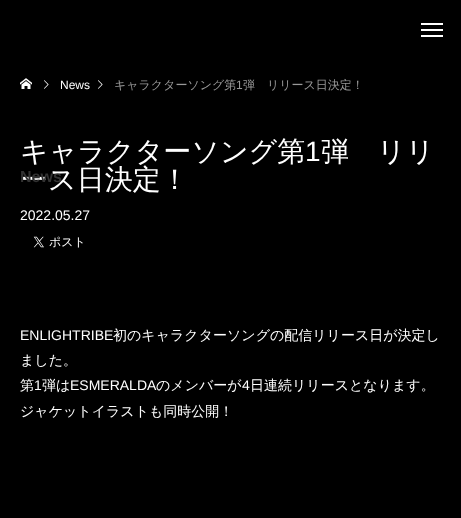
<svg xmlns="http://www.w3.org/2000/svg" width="461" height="518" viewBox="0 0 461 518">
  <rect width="100%" height="100%" fill="rgb(0,0,0)"/>
  <rect x="421" y="23" width="22" height="2" fill="rgb(255,255,255)"/>
  <rect x="421" y="29" width="22" height="2" fill="rgb(255,255,255)"/>
  <rect x="421" y="35" width="22" height="2" fill="rgb(255,255,255)"/>
  <image x="20" y="78" width="12" height="11" href="pic1.png"/>
  <image x="44" y="80" width="5" height="9" href="pic2.png"/>
  <text x="60" y="89" font-family="Liberation Sans" font-size="12" fill="rgb(255,255,255)">News</text>
  <image x="98" y="80" width="5" height="9" href="pic2.png"/>
  <text x="114" y="89" font-family="WenQuanYi Zen Hei" font-size="12" font-weight="500" fill="rgb(153,153,153)">キャラクターソング第</text>
  <text x="236" y="89" font-family="Liberation Sans" font-size="12" fill="rgb(153,153,153)">1</text>
  <text x="243" y="89" font-family="WenQuanYi Zen Hei" font-size="12" font-weight="500" fill="rgb(153,153,153)">弾　リリース日決定！</text>
  <text x="20" y="161" font-family="WenQuanYi Zen Hei" font-size="28" font-weight="500" fill="rgb(255,255,255)">キャラクターソング第</text>
  <text x="305" y="161" font-family="Liberation Sans" font-size="28" fill="rgb(255,255,255)">1</text>
  <g font-family="WenQuanYi Zen Hei" font-size="28" font-weight="500" fill="rgb(255,255,255)">
    <text x="321" y="161">弾　リリ</text>
    <text x="20" y="189">ース日決定！</text>
  </g>
  <text x="20" y="220" font-family="Liberation Sans" font-size="14" fill="rgb(255,255,255)">2022.05.27</text>
  <image x="33" y="236" width="50" height="12" href="pic3.png"/>
  <text x="20" y="340" font-family="Liberation Sans" font-size="14" fill="rgb(255,255,255)">ENLIGHTRIBE</text>
  <g font-family="WenQuanYi Zen Hei" font-size="14" font-weight="500" fill="rgb(255,255,255)">
    <text x="113" y="340">初のキャラクターソングの配信リリース日が決定し</text>
    <text>
      <tspan x="20" y="365">ました。</tspan>
      <tspan x="20" y="390">第</tspan>
    </text>
  </g>
  <text x="34" y="390" font-family="Liberation Sans" font-size="14" fill="rgb(255,255,255)">1</text>
  <text x="42" y="390" font-family="WenQuanYi Zen Hei" font-size="14" font-weight="500" fill="rgb(255,255,255)">弾は</text>
  <text x="70" y="390" font-family="Liberation Sans" font-size="14" fill="rgb(255,255,255)">ESMERALDA</text>
  <text x="156" y="390" font-family="WenQuanYi Zen Hei" font-size="14" font-weight="500" fill="rgb(255,255,255)">のメンバーが</text>
  <text x="242" y="390" font-family="Liberation Sans" font-size="14" fill="rgb(255,255,255)">4</text>
  <g font-family="WenQuanYi Zen Hei" font-size="14" font-weight="500" fill="rgb(255,255,255)">
    <text x="250" y="390">日連続リリースとなります。</text>
    <text x="20" y="416">ジャケットイラストも同時公開！</text>
  </g>
  <text x="20" y="182" font-family="Liberation Sans" font-size="16" font-weight="bold" fill="rgb(50,50,50)">News</text>
</svg>
